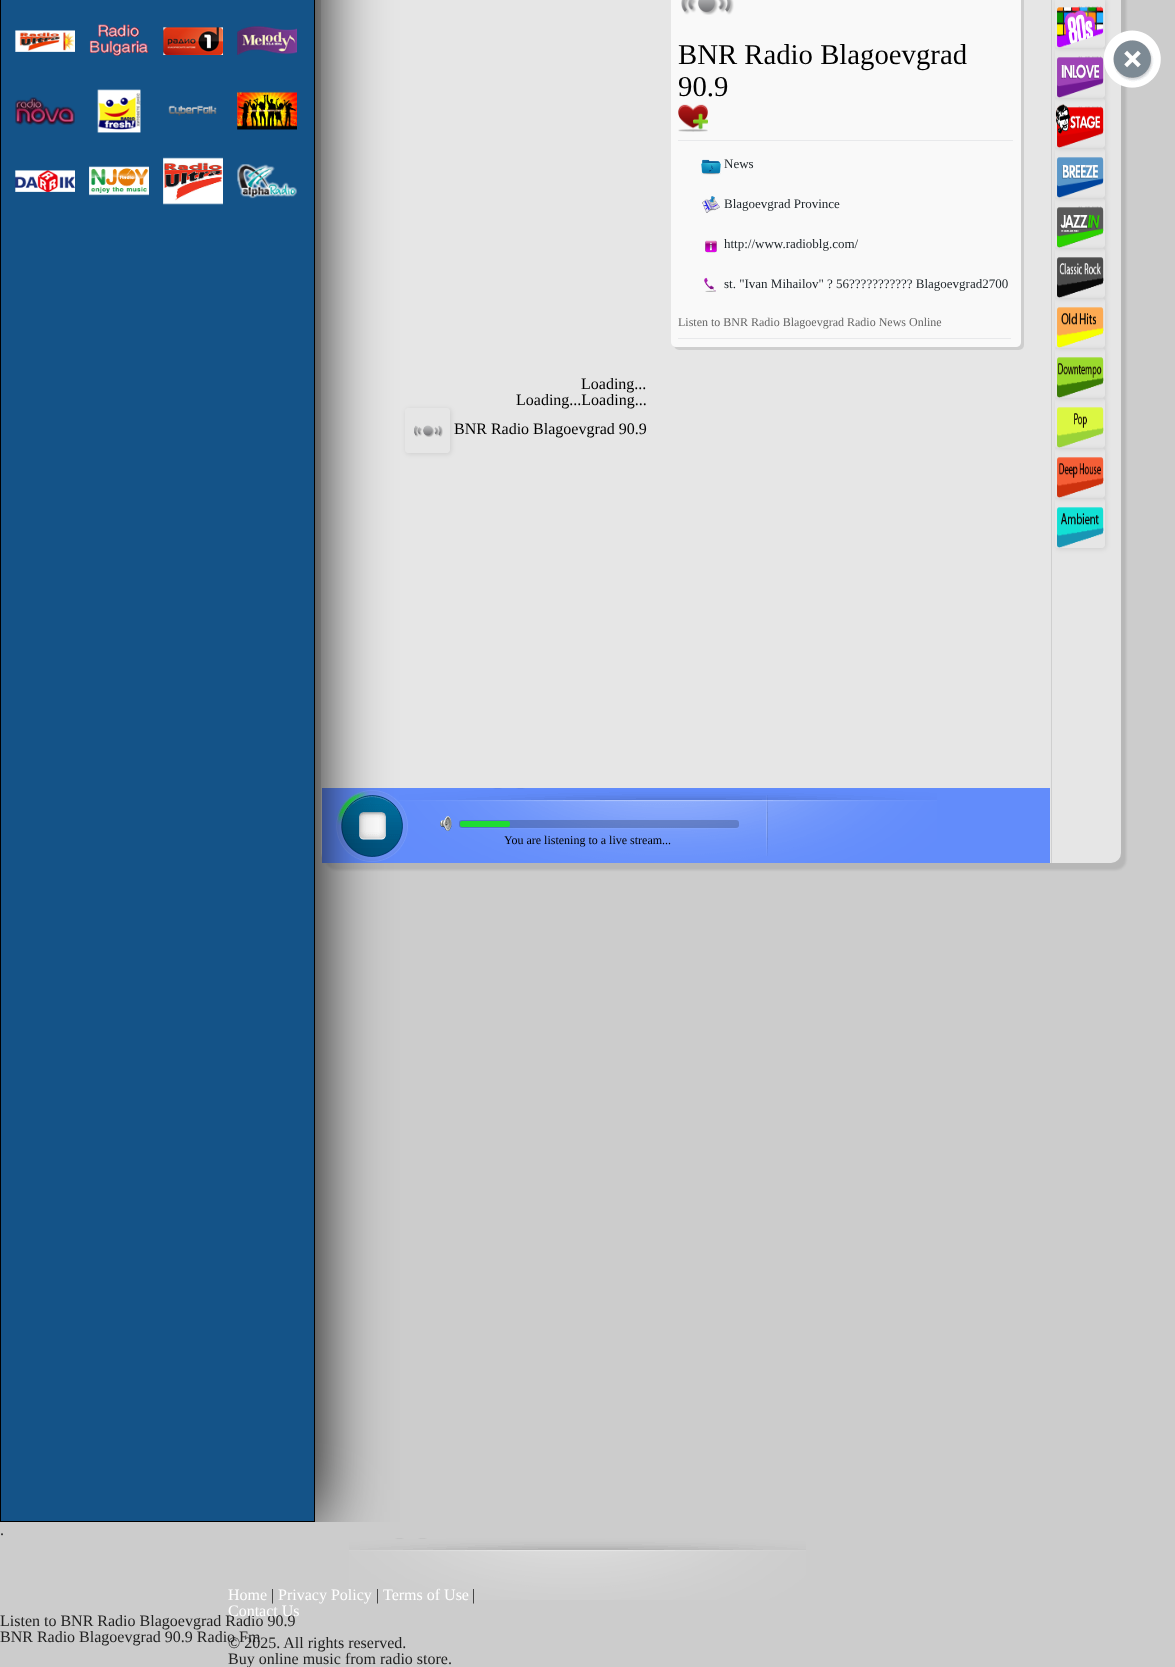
<svg xmlns="http://www.w3.org/2000/svg" width="1175" height="1667" viewBox="0 0 1175 1667">
  <defs>
    <clipPath id="clip1"><path d="M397 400H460V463H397ZM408 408H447C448.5 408 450 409.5 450 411V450C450 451.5 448.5 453 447 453H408C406.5 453 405 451.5 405 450V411C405 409.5 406.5 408 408 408Z" clip-rule="evenodd"/></clipPath>
    <clipPath id="clip2"><rect x="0" y="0" width="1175" height="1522"/></clipPath>
    <clipPath id="clip3"><path d="M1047 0H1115V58H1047ZM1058-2H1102C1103.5-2 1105-.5 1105 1V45C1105 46.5 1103.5 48 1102 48H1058C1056.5 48 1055 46.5 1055 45V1C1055-.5 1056.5-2 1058-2Z" clip-rule="evenodd"/></clipPath>
    <clipPath id="clip4"><path d="M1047 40H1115V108H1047ZM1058 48H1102C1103.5 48 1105 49.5 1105 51V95C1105 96.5 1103.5 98 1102 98H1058C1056.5 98 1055 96.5 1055 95V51C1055 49.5 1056.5 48 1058 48Z" clip-rule="evenodd"/></clipPath>
    <clipPath id="clip5"><path d="M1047 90H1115V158H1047ZM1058 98H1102C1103.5 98 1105 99.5 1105 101V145C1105 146.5 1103.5 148 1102 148H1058C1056.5 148 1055 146.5 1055 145V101C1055 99.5 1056.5 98 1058 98Z" clip-rule="evenodd"/></clipPath>
    <clipPath id="clip6"><path d="M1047 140H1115V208H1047ZM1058 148H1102C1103.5 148 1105 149.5 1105 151V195C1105 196.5 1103.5 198 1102 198H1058C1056.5 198 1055 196.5 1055 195V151C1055 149.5 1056.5 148 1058 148Z" clip-rule="evenodd"/></clipPath>
    <clipPath id="clip7"><path d="M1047 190H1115V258H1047ZM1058 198H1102C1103.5 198 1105 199.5 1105 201V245C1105 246.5 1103.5 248 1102 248H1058C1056.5 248 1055 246.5 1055 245V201C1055 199.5 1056.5 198 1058 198Z" clip-rule="evenodd"/></clipPath>
    <clipPath id="clip8"><path d="M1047 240H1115V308H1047ZM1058 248H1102C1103.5 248 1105 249.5 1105 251V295C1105 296.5 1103.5 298 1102 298H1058C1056.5 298 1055 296.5 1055 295V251C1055 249.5 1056.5 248 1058 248Z" clip-rule="evenodd"/></clipPath>
    <clipPath id="clip9"><path d="M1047 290H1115V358H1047ZM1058 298H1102C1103.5 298 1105 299.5 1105 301V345C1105 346.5 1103.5 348 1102 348H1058C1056.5 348 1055 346.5 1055 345V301C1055 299.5 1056.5 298 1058 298Z" clip-rule="evenodd"/></clipPath>
    <clipPath id="clip10"><path d="M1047 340H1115V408H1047ZM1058 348H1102C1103.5 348 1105 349.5 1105 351V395C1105 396.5 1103.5 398 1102 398H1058C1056.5 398 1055 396.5 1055 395V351C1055 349.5 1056.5 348 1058 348Z" clip-rule="evenodd"/></clipPath>
    <clipPath id="clip11"><path d="M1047 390H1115V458H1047ZM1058 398H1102C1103.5 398 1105 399.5 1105 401V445C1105 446.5 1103.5 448 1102 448H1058C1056.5 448 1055 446.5 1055 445V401C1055 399.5 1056.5 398 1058 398Z" clip-rule="evenodd"/></clipPath>
    <clipPath id="clip12"><path d="M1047 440H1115V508H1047ZM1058 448H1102C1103.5 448 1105 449.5 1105 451V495C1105 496.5 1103.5 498 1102 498H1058C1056.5 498 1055 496.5 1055 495V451C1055 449.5 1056.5 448 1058 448Z" clip-rule="evenodd"/></clipPath>
    <clipPath id="clip13"><path d="M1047 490H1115V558H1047ZM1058 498H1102C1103.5 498 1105 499.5 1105 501V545C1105 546.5 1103.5 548 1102 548H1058C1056.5 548 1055 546.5 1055 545V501C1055 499.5 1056.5 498 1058 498Z" clip-rule="evenodd"/></clipPath>
    <clipPath id="clip14"><path d="M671 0H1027V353H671ZM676-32H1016C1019-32 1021-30 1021-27V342C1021 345 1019 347 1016 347H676C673 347 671 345 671 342V-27C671-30 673-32 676-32Z" clip-rule="evenodd"/></clipPath>
  </defs>
  <rect width="100%" height="100%" fill="rgb(255,255,255)"/>
  <image x="0" y="1522" width="1175" height="145" href="pic1.png"/>
  <rect x="315" y="0" width="860" height="1522" fill="rgb(204,204,204)"/>
  <rect x="326" y="-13" width="800" height="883" rx="10" fill="rgba(0,0,0,0.1)" filter="blur(1px)"/>
  <rect x="321" y="-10" width="800" height="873" rx="10" fill="rgb(230,230,230)"/>
  <g clip-path="url(#clip1)">
    <rect x="406" y="409" width="45" height="45" rx="3" fill="rgba(0,0,0,0.1)" filter="blur(2.5px)"/>
  </g>
  <image x="414" y="425" width="29" height="12" href="pic20.png"/>
  <rect x="322" y="788" width="728" height="75" fill="rgb(98,140,251)"/>
  <image x="399" y="788" width="538" height="75" href="pic21.png"/>
  <image x="336" y="790" width="72" height="72" href="pic22.png"/>
  <image x="337" y="791" width="32" height="34" href="pic23.png"/>
  <image x="349" y="1538" width="457" height="62" href="pic38.png"/>
  <g clip-path="url(#clip2)">
    <rect x="1" y="-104" width="315" height="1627" fill="rgb(0,0,0)" filter="blur(35px)"/>
  </g>
  <rect x="1" y="0" width="313" height="1521" fill="rgb(20,83,136)"/>
  <rect x="314" y="0" width="1" height="1522" fill="rgb(0,0,0)"/>
  <rect x="0" y="1521" width="315" height="1" fill="rgb(0,0,0)"/>
  <rect x="0" y="0" width="1" height="1522" fill="rgb(0,0,0)"/>
  <image x="15" y="30" width="60" height="22" href="pic2.png"/>
  <image x="89" y="24" width="60" height="32" href="pic3.png"/>
  <image x="163" y="27" width="60" height="28" href="pic4.png"/>
  <image x="237" y="26" width="60" height="29" href="pic5.png"/>
  <image x="15" y="97" width="60" height="28" href="pic6.png"/>
  <image x="97" y="89" width="44" height="44" href="pic7.png"/>
  <image x="168" y="105" width="49" height="11" href="pic8.png"/>
  <image x="237" y="91" width="60" height="39" href="pic9.png"/>
  <image x="15" y="170" width="60" height="22" href="pic10.png"/>
  <image x="89" y="166" width="60" height="30" href="pic11.png"/>
  <image x="163" y="157" width="60" height="48" href="pic12.png"/>
  <image x="237" y="164" width="60" height="35" href="pic13.png"/>
  <g clip-path="url(#clip3)">
    <rect x="1056" y="-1" width="50" height="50" rx="3" fill="rgba(0,0,0,0.1)" filter="blur(2.5px)"/>
  </g>
  <image x="1057" y="6" width="47" height="42" href="pic26.png"/>
  <g clip-path="url(#clip4)">
    <rect x="1056" y="49" width="50" height="50" rx="3" fill="rgba(0,0,0,0.1)" filter="blur(2.5px)"/>
  </g>
  <image x="1057" y="56" width="47" height="42" href="pic27.png"/>
  <g clip-path="url(#clip5)">
    <rect x="1056" y="99" width="50" height="50" rx="3" fill="rgba(0,0,0,0.1)" filter="blur(2.5px)"/>
  </g>
  <image x="1055" y="104" width="49" height="44" href="pic28.png"/>
  <g clip-path="url(#clip6)">
    <rect x="1056" y="149" width="50" height="50" rx="3" fill="rgba(0,0,0,0.1)" filter="blur(2.5px)"/>
  </g>
  <image x="1057" y="157" width="47" height="41" href="pic29.png"/>
  <g clip-path="url(#clip7)">
    <rect x="1056" y="199" width="50" height="50" rx="3" fill="rgba(0,0,0,0.1)" filter="blur(2.5px)"/>
  </g>
  <image x="1057" y="206" width="47" height="42" href="pic30.png"/>
  <g clip-path="url(#clip8)">
    <rect x="1056" y="249" width="50" height="50" rx="3" fill="rgba(0,0,0,0.1)" filter="blur(2.5px)"/>
  </g>
  <image x="1057" y="257" width="47" height="41" href="pic31.png"/>
  <g clip-path="url(#clip9)">
    <rect x="1056" y="299" width="50" height="50" rx="3" fill="rgba(0,0,0,0.1)" filter="blur(2.5px)"/>
  </g>
  <image x="1057" y="307" width="47" height="41" href="pic32.png"/>
  <g clip-path="url(#clip10)">
    <rect x="1056" y="349" width="50" height="50" rx="3" fill="rgba(0,0,0,0.1)" filter="blur(2.5px)"/>
  </g>
  <image x="1057" y="357" width="47" height="41" href="pic33.png"/>
  <g clip-path="url(#clip11)">
    <rect x="1056" y="399" width="50" height="50" rx="3" fill="rgba(0,0,0,0.1)" filter="blur(2.5px)"/>
  </g>
  <image x="1057" y="407" width="47" height="41" href="pic34.png"/>
  <g clip-path="url(#clip12)">
    <rect x="1056" y="449" width="50" height="50" rx="3" fill="rgba(0,0,0,0.1)" filter="blur(2.5px)"/>
  </g>
  <image x="1057" y="457" width="47" height="41" href="pic35.png"/>
  <g clip-path="url(#clip13)">
    <rect x="1056" y="499" width="50" height="50" rx="3" fill="rgba(0,0,0,0.1)" filter="blur(2.5px)"/>
  </g>
  <rect x="1051" y="0" width="1" height="863" fill="rgb(207,207,207)"/>
  <g clip-path="url(#clip14)">
    <rect x="674" y="-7" width="350" height="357" rx="5" fill="rgba(0,0,0,0.1)" filter="blur(0.5px)"/>
  </g>
  <rect x="671" y="-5" width="350" height="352" rx="5" fill="rgba(255,255,255,0.75)"/>
  <image x="681" y="0" width="53" height="15" href="pic14.png"/>
  <rect x="678" y="140" width="335" height="1" fill="rgb(232,233,235)"/>
  <g font-family="Liberation Serif" font-size="28.75" fill="rgb(0,0,0)">
    <text>
      <tspan x="678" y="64">BNR Radio Blagoevgrad</tspan>
      <tspan x="678" y="96">90.9</tspan>
    </text>
  </g>
  <image x="678" y="104" width="30" height="28" href="pic15.png"/>
  <image x="701" y="159" width="20" height="16" href="pic16.png"/>
  <text x="724" y="168" font-family="Liberation Serif" font-size="13" fill="rgb(33,40,45)">News</text>
  <image x="702" y="196" width="18" height="17" href="pic17.png"/>
  <text x="724" y="208" font-family="Liberation Serif" font-size="13" fill="rgb(33,40,45)">Blagoevgrad Province</text>
  <image x="705" y="240" width="12" height="13" href="pic18.png"/>
  <text x="724" y="248" font-family="Liberation Serif" font-size="13" fill="rgb(33,40,45)">http://www.radioblg.com/</text>
  <image x="704" y="277" width="12" height="15" href="pic19.png"/>
  <text x="724" y="288" font-family="Liberation Serif" font-size="13" fill="rgb(33,40,45)">st. "Ivan Mihailov" ? 56??????????? Blagoevgrad2700</text>
  <rect x="678" y="338" width="333" height="1" fill="rgb(232,233,235)"/>
  <text x="678" y="326" font-family="Liberation Serif" font-size="12" fill="rgb(102,102,102)">Listen to BNR Radio Blagoevgrad Radio News Online</text>
  <g font-family="Liberation Serif" font-size="16" fill="rgb(0,0,0)">
    <text x="581" y="389">Loading...</text>
    <text x="516" y="405">Loading...Loading...</text>
    <text x="454" y="434">BNR Radio Blagoevgrad 90.9</text>
  </g>
  <image x="440" y="816" width="12" height="15" href="pic24.png"/>
  <path d="M459 825V826C459 828 460 829 462 829H736C738 829 739 828 739 826V825C739 827 738 828 736 828H462C460 828 459 827 459 825Z" fill="rgba(255,255,255,0.05)"/>
  <rect x="459" y="820" width="280" height="8" rx="3" fill="rgba(0,0,0,0.2)"/>
  <rect x="460" y="821" width="50" height="6" rx="2" fill="rgba(13,255,0,0.75)"/>
  <text x="504" y="844" font-family="Liberation Serif" font-size="12" fill="rgb(0,0,0)">You are listening to a live stream...</text>
  <image x="766" y="795" width="2" height="61" href="pic25.png"/>
  <image x="1057" y="507" width="47" height="41" href="pic36.png"/>
  <image x="1103" y="30" width="58" height="58" href="pic37.png"/>
  <g font-family="Liberation Serif" font-size="16" fill="rgb(34,34,34)">
    <text x="0" y="1535">.</text>
    <text x="0" y="1626">Listen to BNR Radio Blagoevgrad Radio 90.9</text>
  </g>
  <text x="228" y="1600" font-family="Liberation Serif" font-size="16" fill="rgb(255,255,255)">Home</text>
  <text x="271" y="1600" font-family="Liberation Serif" font-size="16" fill="rgb(34,34,34)">|</text>
  <text x="278" y="1600" font-family="Liberation Serif" font-size="16" fill="rgb(255,255,255)">Privacy Policy</text>
  <text x="376" y="1600" font-family="Liberation Serif" font-size="16" fill="rgb(34,34,34)">|</text>
  <text x="383" y="1600" font-family="Liberation Serif" font-size="16" fill="rgb(255,255,255)">Terms of Use</text>
  <text x="472" y="1600" font-family="Liberation Serif" font-size="16" fill="rgb(34,34,34)">|</text>
  <text x="228" y="1616" font-family="Liberation Serif" font-size="16" fill="rgb(255,255,255)">Contact Us</text>
  <g font-family="Liberation Serif" font-size="16" fill="rgb(34,34,34)">
    <text>
      <tspan x="228" y="1648">© 2025. All rights reserved.</tspan>
      <tspan x="228" y="1664">Buy online music from radio store.</tspan>
    </text>
    <text x="0" y="1642">BNR Radio Blagoevgrad 90.9 Radio Fm</text>
  </g>
</svg>
